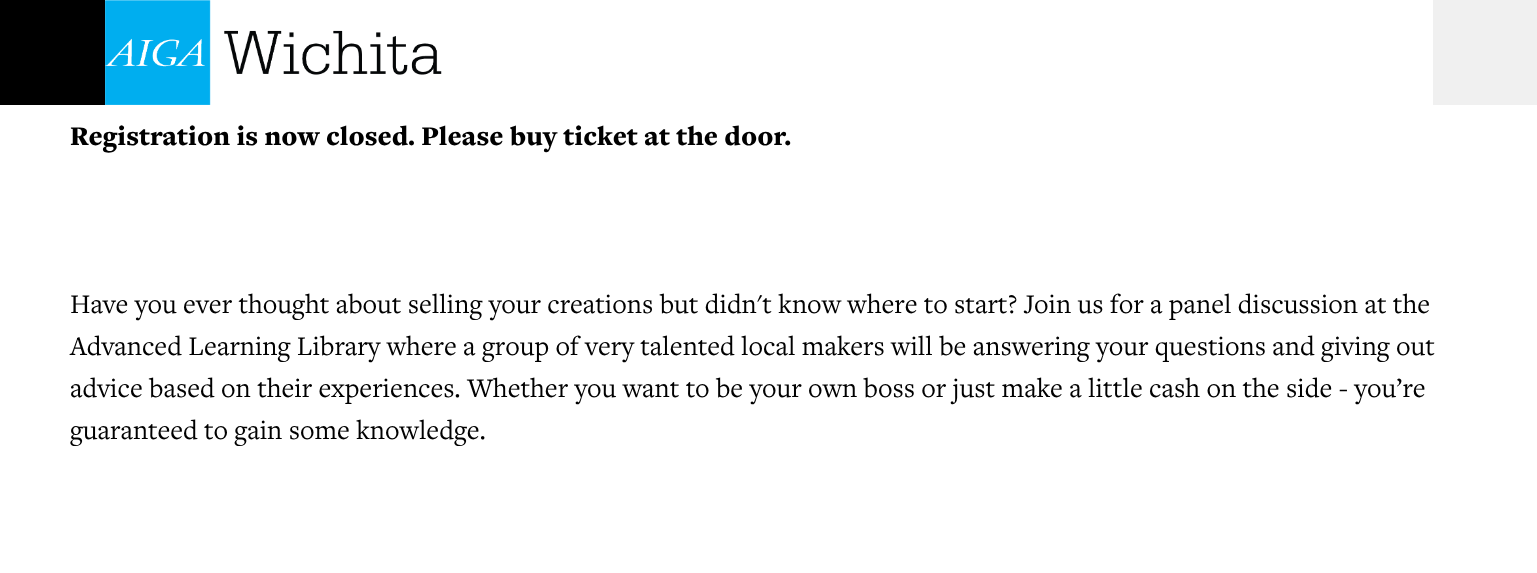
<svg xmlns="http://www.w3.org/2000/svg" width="1537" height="573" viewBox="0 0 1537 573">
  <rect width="100%" height="100%" fill="rgb(255,255,255)"/>
  <rect x="0" y="0" width="105" height="105" fill="rgb(0,0,0)"/>
  <image x="105" y="0" width="337" height="105" href="pic1.png"/>
  <rect x="1433" y="0" width="104" height="105" fill="rgb(240,240,240)"/>
  <text x="70" y="145" font-family="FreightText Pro" font-size="28" font-weight="900" fill="rgb(0,0,0)">Registration is now closed. Please buy ticket at the door.</text>
  <g font-family="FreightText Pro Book" font-size="28" fill="rgb(0,0,0)">
    <text>
      <tspan x="70" y="313">Have you ever thought about selling your creations but didn't know where to start? Join us for a panel discussion at the</tspan>
      <tspan x="70" y="355">Advanced Learning Library where a group of very talented local makers will be answering your questions and giving out</tspan>
      <tspan x="70" y="397">advice based on their experiences. Whether you want to be your own boss or just make a little cash on the side - you’re</tspan>
      <tspan x="70" y="439">guaranteed to gain some knowledge.</tspan>
    </text>
  </g>
</svg>
